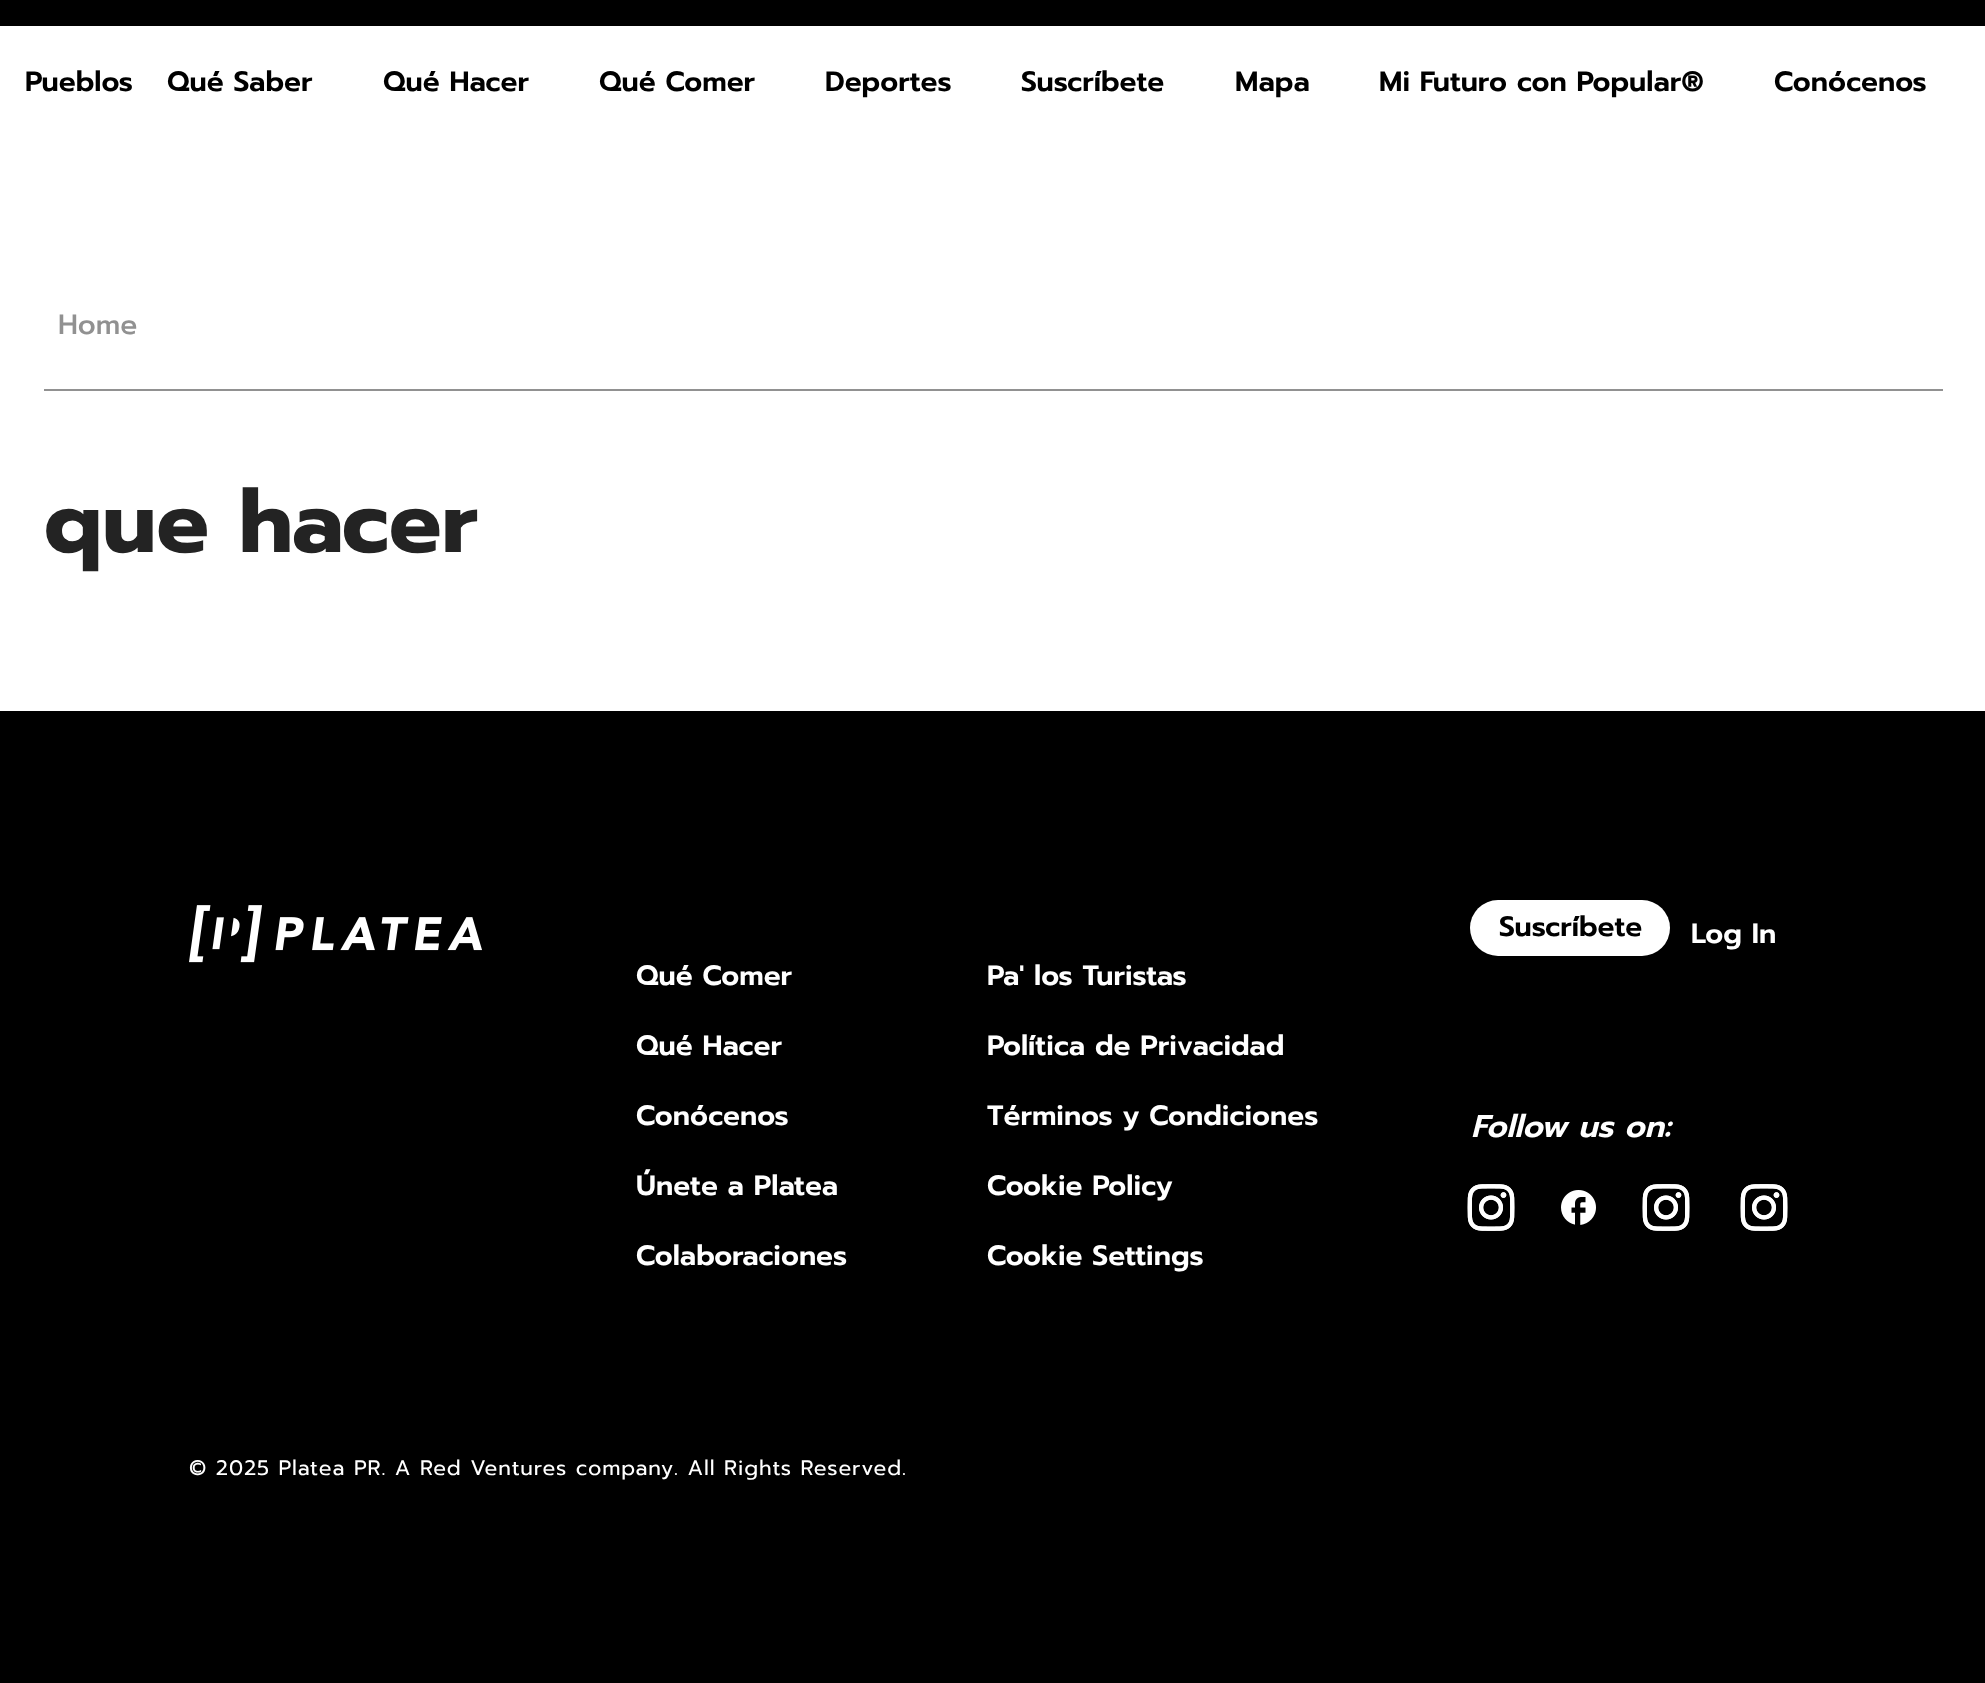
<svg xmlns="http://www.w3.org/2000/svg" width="1985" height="1683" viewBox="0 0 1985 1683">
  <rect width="100%" height="100%" fill="rgb(255,255,255)"/>
  <rect x="0" y="0" width="1985" height="26" fill="rgb(0,0,0)"/>
  <g font-family="Prompt" font-size="28" font-weight="600" fill="rgb(0,0,0)">
    <text x="25" y="91">Pueblos</text>
    <text x="167" y="91">Qué Saber</text>
    <text x="383" y="91">Qué Hacer</text>
    <text x="599" y="91">Qué Comer</text>
    <text x="825" y="91">Deportes</text>
    <text x="1021" y="91">Suscríbete</text>
    <text x="1235" y="91">Mapa</text>
    <text x="1379" y="91">Mi Futuro con Popular®</text>
    <text x="1774" y="91">Conócenos</text>
  </g>
  <rect x="44" y="389" width="1899" height="2" fill="rgb(145,145,145)"/>
  <text x="58" y="334" font-family="Prompt" font-size="28" font-weight="500" fill="rgb(145,145,145)">Home</text>
  <text x="44" y="552" font-family="Prompt" font-size="87.5" font-weight="bold" fill="rgb(35,35,35)">que hacer</text>
  <rect x="0" y="711" width="1985" height="972" fill="rgb(0,0,0)"/>
  <image x="189" y="905" width="293" height="58" href="pic1.png"/>
  <g font-family="Prompt" font-size="28" font-weight="600" fill="rgb(255,255,255)">
    <text x="636" y="985">Qué Comer</text>
    <text x="636" y="1055">Qué Hacer</text>
    <text x="636" y="1125">Conócenos</text>
    <text x="636" y="1195">Únete a Platea</text>
    <text x="636" y="1265">Colaboraciones</text>
    <text x="987" y="985">Pa' los Turistas</text>
    <text x="987" y="1055">Política de Privacidad</text>
    <text x="987" y="1125">Términos y Condiciones</text>
    <text x="987" y="1195">Cookie Policy</text>
    <text x="987" y="1265">Cookie Settings</text>
  </g>
  <rect x="1470" y="900" width="200" height="56" rx="28" fill="rgb(255,255,255)"/>
  <text x="1499" y="936" font-family="Prompt" font-size="28" font-weight="600" fill="rgb(0,0,0)">Suscríbete</text>
  <text x="1691" y="943" font-family="Prompt" font-size="28" font-weight="600" fill="rgb(255,255,255)">Log In</text>
  <text x="1471" y="1137" font-family="Prompt" font-size="31.5" font-weight="600" font-style="italic" fill="rgb(255,255,255)">Follow us on:</text>
  <image x="1467" y="1184" width="48" height="47" href="pic2.png"/>
  <image x="1561" y="1190" width="35" height="35" href="pic3.png"/>
  <image x="1642" y="1184" width="48" height="47" href="pic2.png"/>
  <image x="1740" y="1184" width="48" height="47" href="pic2.png"/>
  <text x="189" y="1475" font-family="Prompt" font-size="21" letter-spacing="0.88" fill="rgb(255,255,255)">© 2025 Platea PR. A Red Ventures company. All Rights Reserved.</text>
</svg>
